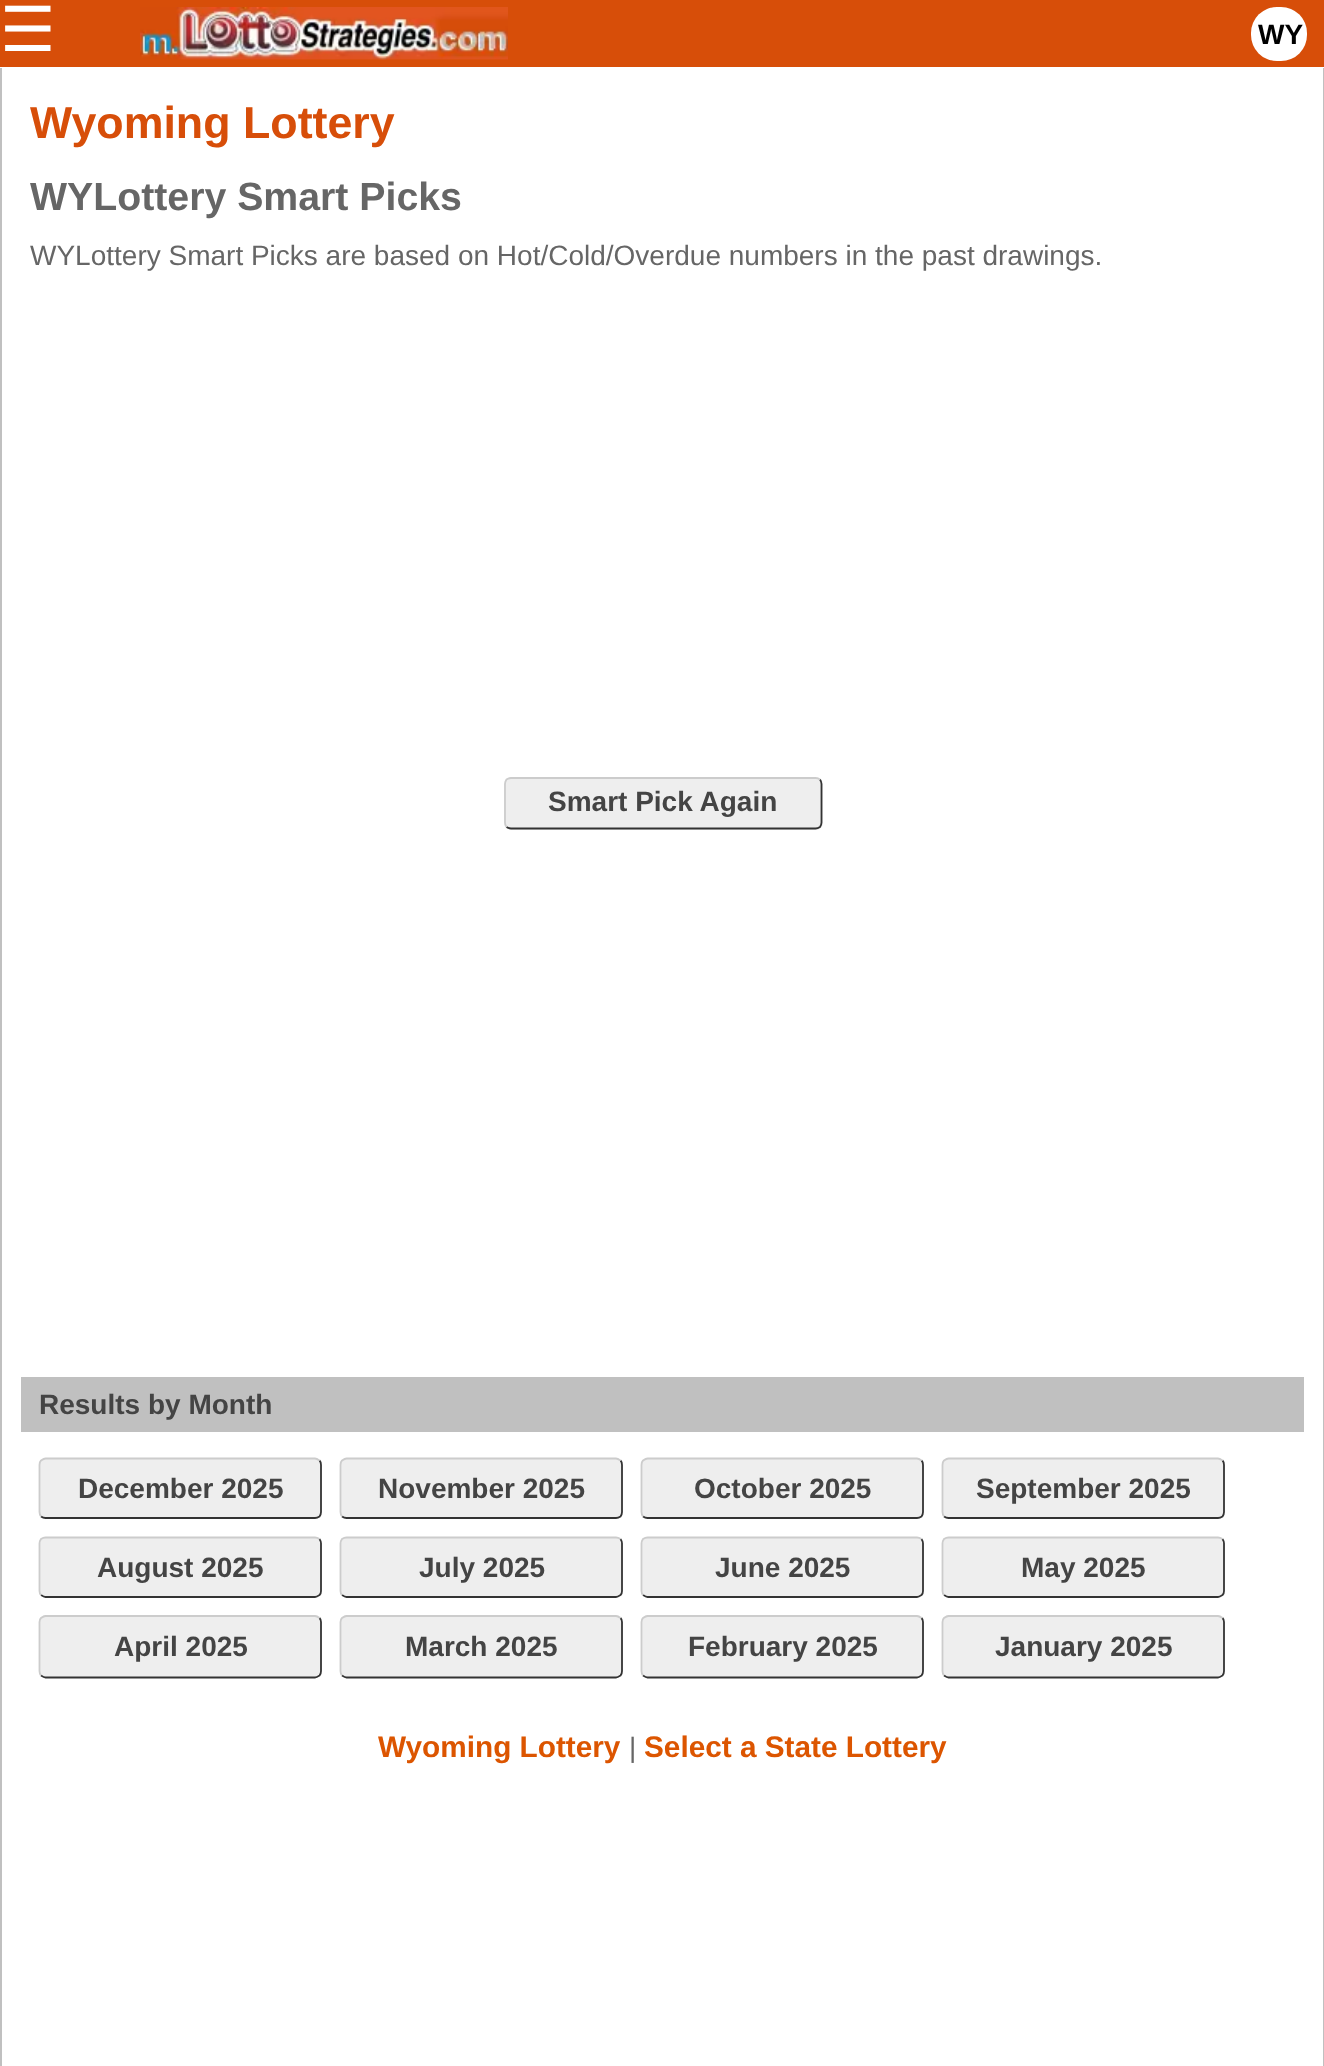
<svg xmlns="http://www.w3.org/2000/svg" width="1324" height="2066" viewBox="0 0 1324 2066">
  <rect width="100%" height="100%" fill="rgb(255,255,255)"/>
  <rect x="0" y="0" width="1324" height="67" fill="rgb(215,78,9)"/>
  <text x="0" y="51" font-family="DejaVu Sans" font-size="62" fill="rgb(255,255,255)">☰</text>
  <image x="140" y="7" width="368" height="53" href="pic1.png"/>
  <rect x="1251" y="7" width="56" height="54" rx="26" fill="rgb(255,255,255)"/>
  <text x="1258" y="44" font-family="Liberation Sans" font-size="28" font-weight="bold" fill="rgb(0,0,0)">WY</text>
  <rect x="1323" y="68" width="1" height="1998" fill="rgb(192,192,192)"/>
  <rect x="0" y="68" width="2" height="1998" fill="rgb(192,192,192)"/>
  <text x="30" y="138" font-family="Liberation Sans" font-size="44.75" font-weight="bold" fill="rgb(215,78,9)">Wyoming Lottery</text>
  <text x="30" y="210" font-family="Liberation Sans" font-size="39.25" font-weight="bold" fill="rgb(102,102,102)">WYLottery Smart Picks</text>
  <text x="30" y="265" font-family="Liberation Sans" font-size="28" fill="rgb(102,102,102)">WYLottery Smart Picks are based on Hot/Cold/Overdue numbers in the past drawings.</text>
  <rect x="504" y="777" width="319" height="53" rx="7" fill="rgb(238,238,238)"/>
  <path d="M820 779.5C821 781 821.5 782.5 821.5 784V822.5C821.5 824 821 825.5 820 827C818.5 828 817 828.5 815.5 828.5H511C509.5 828.5 508 828 506.5 827" fill="none" stroke="rgb(51,51,51)" stroke-width="1.8"/>
  <path d="M506.5 827C505.5 825.5 505 824 505 822.5V784C505 782.5 505.5 781 506.5 779.5C508 778.5 509.5 778 511 778H815.5C817 778 818.5 778.5 820 779.5" fill="none" stroke="rgb(204,204,204)" stroke-width="1.8"/>
  <text x="548" y="811" font-family="Liberation Sans" font-size="28" font-weight="bold" fill="rgb(68,68,68)">Smart Pick Again</text>
  <rect x="21" y="1377" width="1283" height="55" fill="rgb(192,192,192)"/>
  <text x="39" y="1414" font-family="Liberation Sans" font-size="28" font-weight="bold" fill="rgb(68,68,68)">Results by Month</text>
  <rect x="39" y="1458" width="283" height="61" rx="7" fill="rgb(238,238,238)"/>
  <path d="M319.5 1460.5C320.5 1461.5 321 1463 321 1465V1512C321 1513.5 320.5 1515 319.5 1516.5C318 1517.5 316.5 1518 315 1518H45.5C44 1518 42.5 1517.5 41 1516.5" fill="none" stroke="rgb(51,51,51)" stroke-width="1.8"/>
  <path d="M41 1516.5C40 1515 39.5 1513.5 39.5 1512V1465C39.5 1463 40 1461.5 41 1460.5C42.5 1459.5 44 1458.5 45.5 1458.5H315C316.5 1458.5 318 1459.5 319.5 1460.5" fill="none" stroke="rgb(204,204,204)" stroke-width="1.8"/>
  <text x="78" y="1498" font-family="Liberation Sans" font-size="28" font-weight="bold" fill="rgb(68,68,68)">December 2025</text>
  <rect x="340" y="1458" width="283" height="61" rx="7" fill="rgb(238,238,238)"/>
  <path d="M620.5 1460.5C621.5 1461.5 622 1463 622 1465V1512C622 1513.5 621.5 1515 620.5 1516.5C619 1517.5 617.5 1518 616 1518H346.5C345 1518 343.5 1517.5 342 1516.5" fill="none" stroke="rgb(51,51,51)" stroke-width="1.8"/>
  <path d="M342 1516.5C341 1515 340.5 1513.5 340.5 1512V1465C340.5 1463 341 1461.5 342 1460.5C343.5 1459.5 345 1458.5 346.5 1458.5H616C617.5 1458.5 619 1459.5 620.5 1460.5" fill="none" stroke="rgb(204,204,204)" stroke-width="1.8"/>
  <text x="378" y="1498" font-family="Liberation Sans" font-size="28" font-weight="bold" fill="rgb(68,68,68)">November 2025</text>
  <rect x="641" y="1458" width="283" height="61" rx="7" fill="rgb(238,238,238)"/>
  <path d="M921.5 1460.5C922.5 1461.5 923 1463 923 1465V1512C923 1513.5 922.5 1515 921.5 1516.5C920 1517.5 918.5 1518 917 1518H647.5C646 1518 644.5 1517.5 643 1516.5" fill="none" stroke="rgb(51,51,51)" stroke-width="1.8"/>
  <path d="M643 1516.5C642 1515 641.5 1513.5 641.5 1512V1465C641.5 1463 642 1461.5 643 1460.5C644.5 1459.5 646 1458.5 647.5 1458.5H917C918.5 1458.5 920 1459.5 921.5 1460.5" fill="none" stroke="rgb(204,204,204)" stroke-width="1.8"/>
  <text x="694" y="1498" font-family="Liberation Sans" font-size="28" font-weight="bold" fill="rgb(68,68,68)">October 2025</text>
  <rect x="942" y="1458" width="283" height="61" rx="7" fill="rgb(238,238,238)"/>
  <path d="M1222.5 1460.5C1223.5 1461.5 1224 1463 1224 1465V1512C1224 1513.5 1223.5 1515 1222.5 1516.5C1221 1517.5 1219.5 1518 1218 1518H948.5C947 1518 945.5 1517.5 944 1516.5" fill="none" stroke="rgb(51,51,51)" stroke-width="1.8"/>
  <path d="M944 1516.5C943 1515 942.5 1513.5 942.5 1512V1465C942.5 1463 943 1461.5 944 1460.5C945.5 1459.5 947 1458.5 948.5 1458.5H1218C1219.5 1458.5 1221 1459.5 1222.5 1460.5" fill="none" stroke="rgb(204,204,204)" stroke-width="1.8"/>
  <text x="976" y="1498" font-family="Liberation Sans" font-size="28" font-weight="bold" fill="rgb(68,68,68)">September 2025</text>
  <rect x="39" y="1537" width="283" height="61" rx="7" fill="rgb(238,238,238)"/>
  <path d="M319.5 1539C320.5 1540.5 321 1542 321 1543.5V1591C321 1592.5 320.5 1594 319.5 1595C318 1596 316.5 1597 315 1597H45.5C44 1597 42.5 1596 41 1595" fill="none" stroke="rgb(51,51,51)" stroke-width="1.8"/>
  <path d="M41 1595C40 1594 39.5 1592.5 39.5 1591V1543.5C39.5 1542 40 1540.5 41 1539C42.5 1538 44 1537.5 45.5 1537.5H315C316.5 1537.5 318 1538 319.5 1539" fill="none" stroke="rgb(204,204,204)" stroke-width="1.8"/>
  <text x="97" y="1577" font-family="Liberation Sans" font-size="28" font-weight="bold" fill="rgb(68,68,68)">August 2025</text>
  <rect x="340" y="1537" width="283" height="61" rx="7" fill="rgb(238,238,238)"/>
  <path d="M620.5 1539C621.5 1540.5 622 1542 622 1543.5V1591C622 1592.5 621.5 1594 620.5 1595C619 1596 617.5 1597 616 1597H346.5C345 1597 343.5 1596 342 1595" fill="none" stroke="rgb(51,51,51)" stroke-width="1.8"/>
  <path d="M342 1595C341 1594 340.5 1592.5 340.5 1591V1543.5C340.5 1542 341 1540.5 342 1539C343.5 1538 345 1537.5 346.5 1537.5H616C617.5 1537.5 619 1538 620.5 1539" fill="none" stroke="rgb(204,204,204)" stroke-width="1.8"/>
  <text x="419" y="1577" font-family="Liberation Sans" font-size="28" font-weight="bold" fill="rgb(68,68,68)">July 2025</text>
  <rect x="641" y="1537" width="283" height="61" rx="7" fill="rgb(238,238,238)"/>
  <path d="M921.5 1539C922.5 1540.5 923 1542 923 1543.5V1591C923 1592.5 922.5 1594 921.5 1595C920 1596 918.5 1597 917 1597H647.5C646 1597 644.5 1596 643 1595" fill="none" stroke="rgb(51,51,51)" stroke-width="1.8"/>
  <path d="M643 1595C642 1594 641.5 1592.5 641.5 1591V1543.5C641.5 1542 642 1540.5 643 1539C644.5 1538 646 1537.5 647.5 1537.5H917C918.5 1537.5 920 1538 921.5 1539" fill="none" stroke="rgb(204,204,204)" stroke-width="1.8"/>
  <text x="715" y="1577" font-family="Liberation Sans" font-size="28" font-weight="bold" fill="rgb(68,68,68)">June 2025</text>
  <rect x="942" y="1537" width="283" height="61" rx="7" fill="rgb(238,238,238)"/>
  <path d="M1222.5 1539C1223.5 1540.5 1224 1542 1224 1543.5V1591C1224 1592.5 1223.5 1594 1222.5 1595C1221 1596 1219.5 1597 1218 1597H948.5C947 1597 945.5 1596 944 1595" fill="none" stroke="rgb(51,51,51)" stroke-width="1.8"/>
  <path d="M944 1595C943 1594 942.5 1592.5 942.5 1591V1543.5C942.5 1542 943 1540.5 944 1539C945.5 1538 947 1537.5 948.5 1537.5H1218C1219.5 1537.5 1221 1538 1222.5 1539" fill="none" stroke="rgb(204,204,204)" stroke-width="1.8"/>
  <text x="1021" y="1577" font-family="Liberation Sans" font-size="28" font-weight="bold" fill="rgb(68,68,68)">May 2025</text>
  <rect x="39" y="1615" width="283" height="63" rx="7" fill="rgb(238,238,238)"/>
  <path d="M319.5 1618C320.5 1619 321 1620.5 321 1622V1671C321 1673 320.5 1674.5 319.5 1675.5C318 1676.5 316.5 1677.5 315 1677.5H45.5C44 1677.5 42.5 1676.5 41 1675.5" fill="none" stroke="rgb(51,51,51)" stroke-width="1.8"/>
  <path d="M41 1675.5C40 1674.5 39.5 1673 39.5 1671V1622C39.5 1620.5 40 1619 41 1618C42.5 1617 44 1616 45.5 1616H315C316.5 1616 318 1617 319.5 1618" fill="none" stroke="rgb(204,204,204)" stroke-width="1.8"/>
  <text x="114" y="1656" font-family="Liberation Sans" font-size="28" font-weight="bold" fill="rgb(68,68,68)">April 2025</text>
  <rect x="340" y="1615" width="283" height="63" rx="7" fill="rgb(238,238,238)"/>
  <path d="M620.5 1618C621.5 1619 622 1620.5 622 1622V1671C622 1673 621.5 1674.5 620.5 1675.5C619 1676.5 617.5 1677.5 616 1677.5H346.5C345 1677.5 343.5 1676.5 342 1675.5" fill="none" stroke="rgb(51,51,51)" stroke-width="1.8"/>
  <path d="M342 1675.5C341 1674.5 340.5 1673 340.5 1671V1622C340.5 1620.5 341 1619 342 1618C343.5 1617 345 1616 346.5 1616H616C617.5 1616 619 1617 620.5 1618" fill="none" stroke="rgb(204,204,204)" stroke-width="1.8"/>
  <text x="405" y="1656" font-family="Liberation Sans" font-size="28" font-weight="bold" fill="rgb(68,68,68)">March 2025</text>
  <rect x="641" y="1615" width="283" height="63" rx="7" fill="rgb(238,238,238)"/>
  <path d="M921.5 1618C922.5 1619 923 1620.5 923 1622V1671C923 1673 922.5 1674.5 921.5 1675.5C920 1676.5 918.5 1677.5 917 1677.5H647.5C646 1677.5 644.5 1676.5 643 1675.5" fill="none" stroke="rgb(51,51,51)" stroke-width="1.8"/>
  <path d="M643 1675.5C642 1674.5 641.5 1673 641.5 1671V1622C641.5 1620.5 642 1619 643 1618C644.5 1617 646 1616 647.5 1616H917C918.5 1616 920 1617 921.5 1618" fill="none" stroke="rgb(204,204,204)" stroke-width="1.8"/>
  <text x="688" y="1656" font-family="Liberation Sans" font-size="28" font-weight="bold" fill="rgb(68,68,68)">February 2025</text>
  <rect x="942" y="1615" width="283" height="63" rx="7" fill="rgb(238,238,238)"/>
  <path d="M1222.5 1618C1223.5 1619 1224 1620.5 1224 1622V1671C1224 1673 1223.5 1674.5 1222.5 1675.5C1221 1676.5 1219.5 1677.5 1218 1677.5H948.5C947 1677.5 945.5 1676.5 944 1675.5" fill="none" stroke="rgb(51,51,51)" stroke-width="1.8"/>
  <path d="M944 1675.5C943 1674.5 942.5 1673 942.5 1671V1622C942.5 1620.5 943 1619 944 1618C945.5 1617 947 1616 948.5 1616H1218C1219.5 1616 1221 1617 1222.5 1618" fill="none" stroke="rgb(204,204,204)" stroke-width="1.8"/>
  <text x="995" y="1656" font-family="Liberation Sans" font-size="28" font-weight="bold" fill="rgb(68,68,68)">January 2025</text>
  <text x="378" y="1757" font-family="Liberation Sans" font-size="29.75" font-weight="bold" fill="rgb(220,85,0)">Wyoming Lottery</text>
  <text x="629" y="1757" font-family="Liberation Sans" font-size="28" fill="rgb(102,102,102)">|</text>
  <text x="644" y="1757" font-family="Liberation Sans" font-size="29.75" font-weight="bold" fill="rgb(220,85,0)">Select a State Lottery</text>
</svg>
